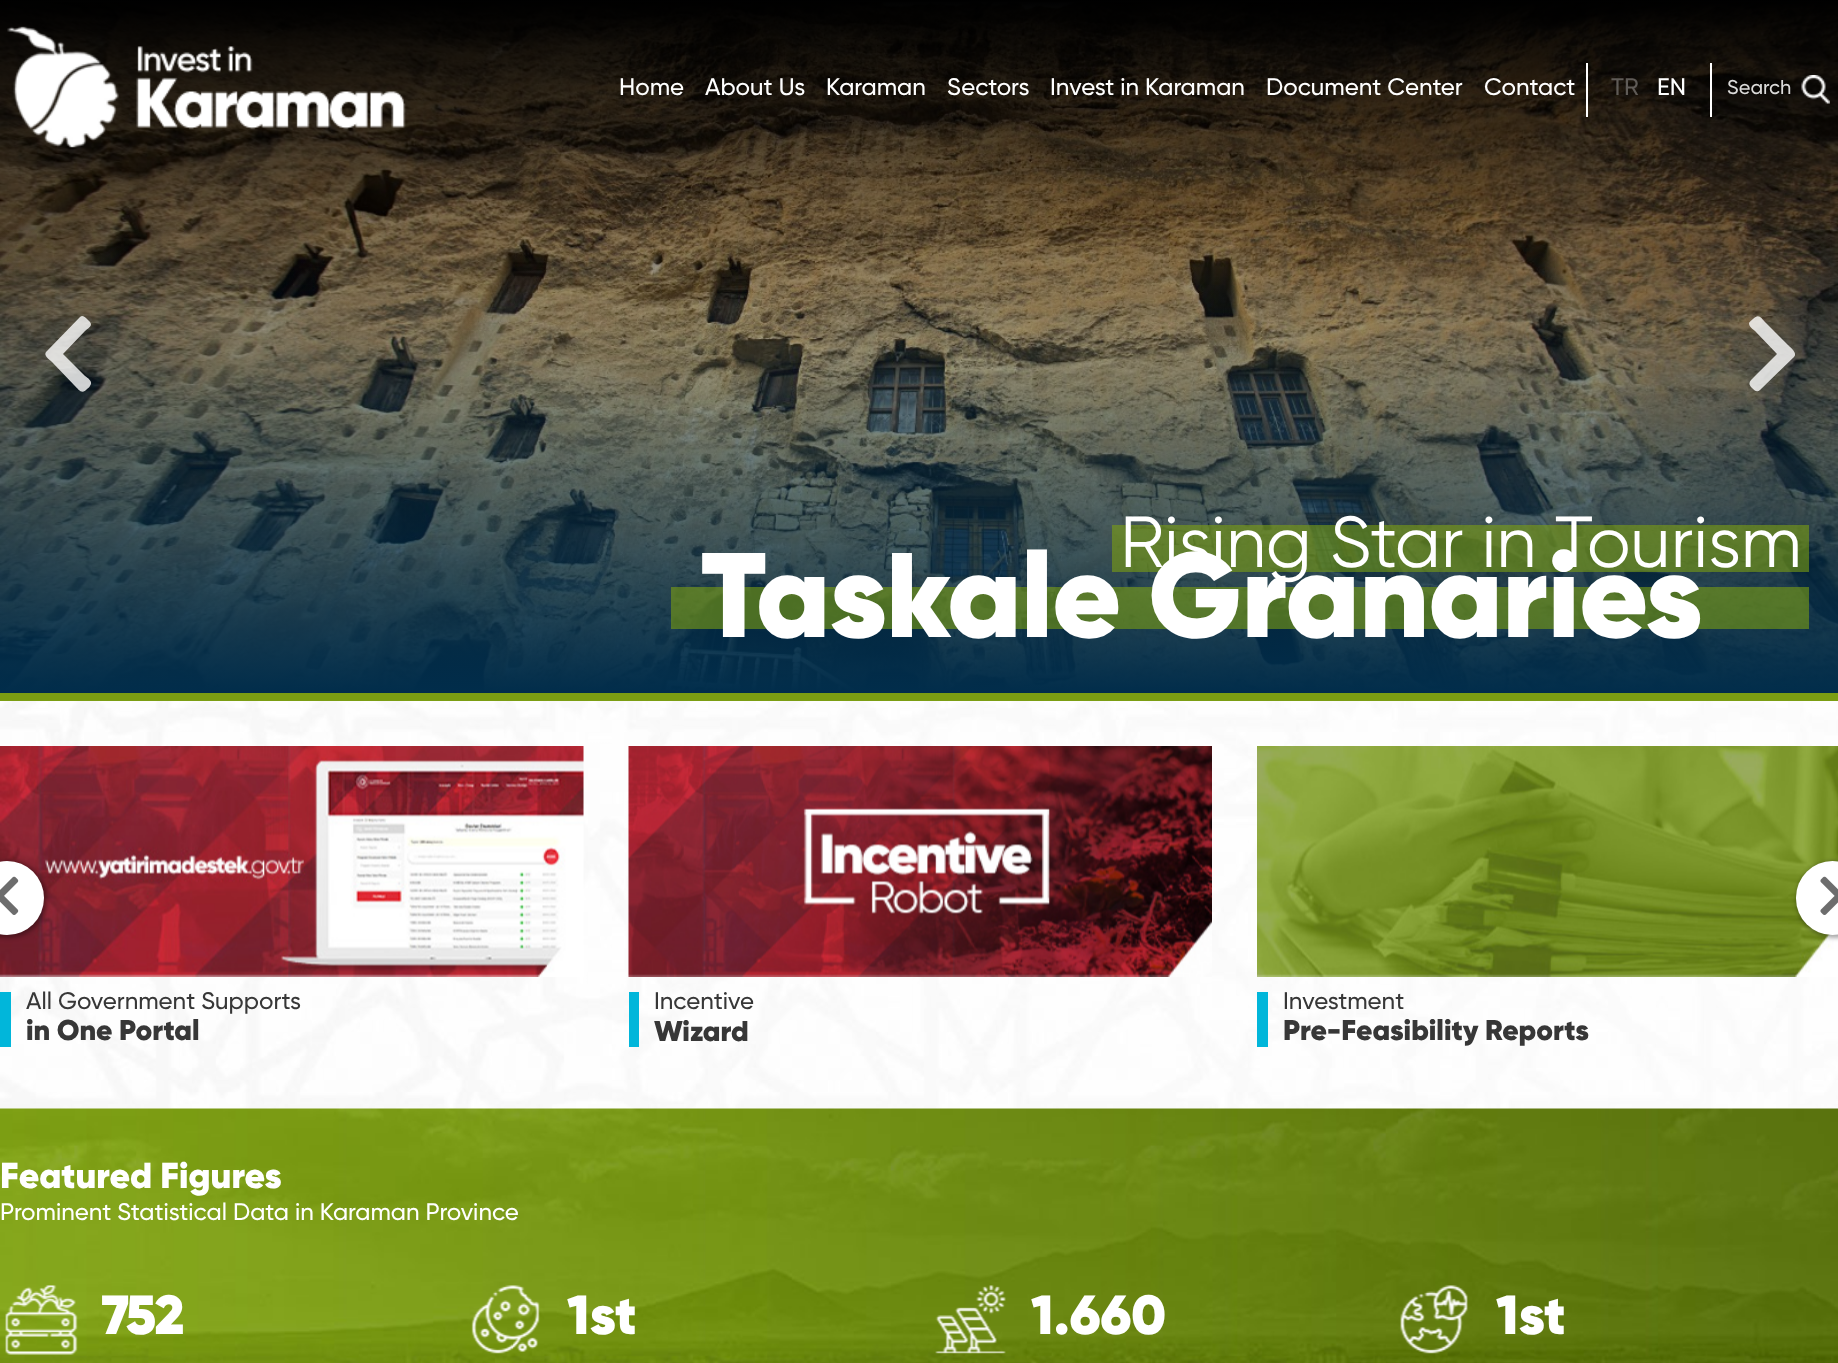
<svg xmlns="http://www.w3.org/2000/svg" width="1838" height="1363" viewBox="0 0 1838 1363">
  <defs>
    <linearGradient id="g1" gradientUnits="userSpaceOnUse" x1="920" y1="693" x2="920" y2="209"><stop offset="0" stop-color="rgb(1,45,75)"/><stop offset="1" stop-color="rgb(1,45,75)" stop-opacity="0"/></linearGradient>
    <linearGradient id="g2" gradientUnits="userSpaceOnUse" x1="920" y1="0" x2="920" y2="347"><stop offset="0" stop-color="rgb(0,0,0)"/><stop offset="1" stop-color="rgb(0,0,0)" stop-opacity="0"/></linearGradient>
  </defs>
  <rect width="100%" height="100%" fill="rgb(255,255,255)"/>
  <image x="0" y="701" width="1838" height="408" href="pic1.png"/>
  <image x="0" y="2" width="1838" height="688" href="pic4.png"/>
  <rect x="0" y="219" width="1838" height="474" fill="url(#g1)"/>
  <rect x="0" y="0" width="1838" height="340" fill="url(#g2)"/>
  <image x="7" y="26" width="399" height="122" href="pic2.png"/>
  <g font-family="Gilroy" font-size="24" font-weight="500" fill="rgb(255,255,255)">
    <text x="619" y="95">Home</text>
    <text x="705" y="95">About Us</text>
    <text x="826" y="95">Karaman</text>
    <text x="947" y="95">Sectors</text>
    <text x="1050" y="95">Invest in Karaman</text>
    <text x="1266" y="95">Document Center</text>
    <text x="1484" y="95">Contact</text>
  </g>
  <rect x="1710" y="63" width="2" height="54" fill="rgb(255,255,255)"/>
  <rect x="1586" y="63" width="2" height="54" fill="rgb(255,255,255)"/>
  <text x="1611" y="95" font-family="Gilroy" font-size="24" font-weight="500" fill="rgb(95,91,87)">TR</text>
  <text x="1657" y="95" font-family="Gilroy" font-size="24" font-weight="500" fill="rgb(255,255,255)">EN</text>
  <text x="1727" y="94" font-family="Gilroy" font-size="20" font-weight="500" fill="rgb(218,218,217)">Search</text>
  <image x="1801" y="75" width="29" height="29" href="pic3.png"/>
  <rect x="0" y="693" width="1838" height="8" fill="rgb(124,158,19)"/>
  <path d="M47 351L80 317C83 314 86 318 88 320C94 325 90 327 85 331L63 354L85 376C88 378 92 381 91 384C90 386 89 388 87 389C82 395 79 390 74 385L52 362C50 360 42 355 47 351Z" fill="rgba(255,255,255,0.8)"/>
  <path d="M1794 357L1760 390C1757 393 1754 390 1752 388C1747 383 1750 381 1755 376L1777 354L1755 331C1753 329 1749 327 1749 323C1750 321 1752 320 1753 319C1759 313 1761 318 1766 323L1788 345C1790 347 1798 353 1794 357Z" fill="rgba(255,255,255,0.8)"/>
  <rect x="1112" y="525" width="697" height="47" fill="rgba(124,158,19,0.6)"/>
  <text x="1120" y="567" font-family="Gilroy" font-size="72" fill="rgb(255,255,255)">Rising Star in Tourism</text>
  <rect x="671" y="587" width="1138" height="42" fill="rgba(124,158,19,0.6)"/>
  <text x="701" y="637" font-family="Gilroy" font-size="120" font-weight="900" fill="rgb(255,255,255)">Taskale Granaries</text>
  <image x="0" y="746" width="584" height="231" href="pic7.png"/>
  <rect x="-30" y="861" width="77" height="77" rx="38.5" fill="rgba(0,0,0,0.34)" filter="blur(2px)"/>
  <circle cx="7" cy="898" r="37" fill="rgb(255,255,255)"/>
  <image x="0" y="876" width="19" height="39" href="pic5.png"/>
  <image x="1257" y="746" width="581" height="231" href="pic9.png"/>
  <rect x="1796" y="861" width="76" height="77" rx="38" fill="rgba(0,0,0,0.34)" filter="blur(2px)"/>
  <rect x="1796" y="861" width="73" height="74" rx="36.5" fill="rgb(255,255,255)"/>
  <image x="1820" y="876" width="18" height="39" href="pic6.png"/>
  <rect x="0" y="992" width="11" height="55" fill="rgb(1,182,218)"/>
  <text x="26" y="1009" font-family="Gilroy" font-size="24" font-weight="500" fill="rgb(55,55,55)">All Government Supports</text>
  <text x="26" y="1040" font-family="Gilroy" font-size="28.75" font-weight="900" fill="rgb(55,55,55)">in One Portal</text>
  <image x="628" y="746" width="584" height="231" href="pic8.png"/>
  <rect x="629" y="992" width="10" height="55" fill="rgb(1,182,218)"/>
  <text x="654" y="1009" font-family="Gilroy" font-size="24" font-weight="500" fill="rgb(55,55,55)">Incentive</text>
  <text x="654" y="1041" font-family="Gilroy" font-size="28.75" font-weight="900" fill="rgb(55,55,55)">Wizard</text>
  <rect x="1257" y="992" width="11" height="55" fill="rgb(1,182,218)"/>
  <text x="1283" y="1009" font-family="Gilroy" font-size="24" font-weight="500" fill="rgb(55,55,55)">Investment</text>
  <text x="1283" y="1040" font-family="Gilroy" font-size="28.75" font-weight="900" fill="rgb(55,55,55)">Pre-Feasibility Reports</text>
  <image x="0" y="1108" width="1838" height="255" href="pic10.png"/>
  <text x="0" y="1188" font-family="Gilroy" font-size="36" font-weight="900" fill="rgb(255,255,255)">Featured Figures</text>
  <text x="0" y="1220" font-family="Gilroy" font-size="24" font-weight="500" fill="rgb(255,255,255)">Prominent Statistical Data in Karaman Province</text>
  <image x="5" y="1285" width="73" height="70" href="pic11.png"/>
  <text x="102" y="1334" font-family="Gilroy" font-size="55" font-weight="900" fill="rgb(255,255,255)">752</text>
  <image x="471" y="1285" width="69" height="69" href="pic12.png"/>
  <text x="567" y="1334" font-family="Gilroy" font-size="55" font-weight="900" fill="rgb(255,255,255)">1st</text>
  <image x="935" y="1285" width="71" height="69" href="pic13.png"/>
  <text x="1031" y="1334" font-family="Gilroy" font-size="55" font-weight="900" fill="rgb(255,255,255)">1.660</text>
  <image x="1400" y="1285" width="68" height="69" href="pic14.png"/>
  <text x="1496" y="1334" font-family="Gilroy" font-size="55" font-weight="900" fill="rgb(255,255,255)">1st</text>
</svg>
